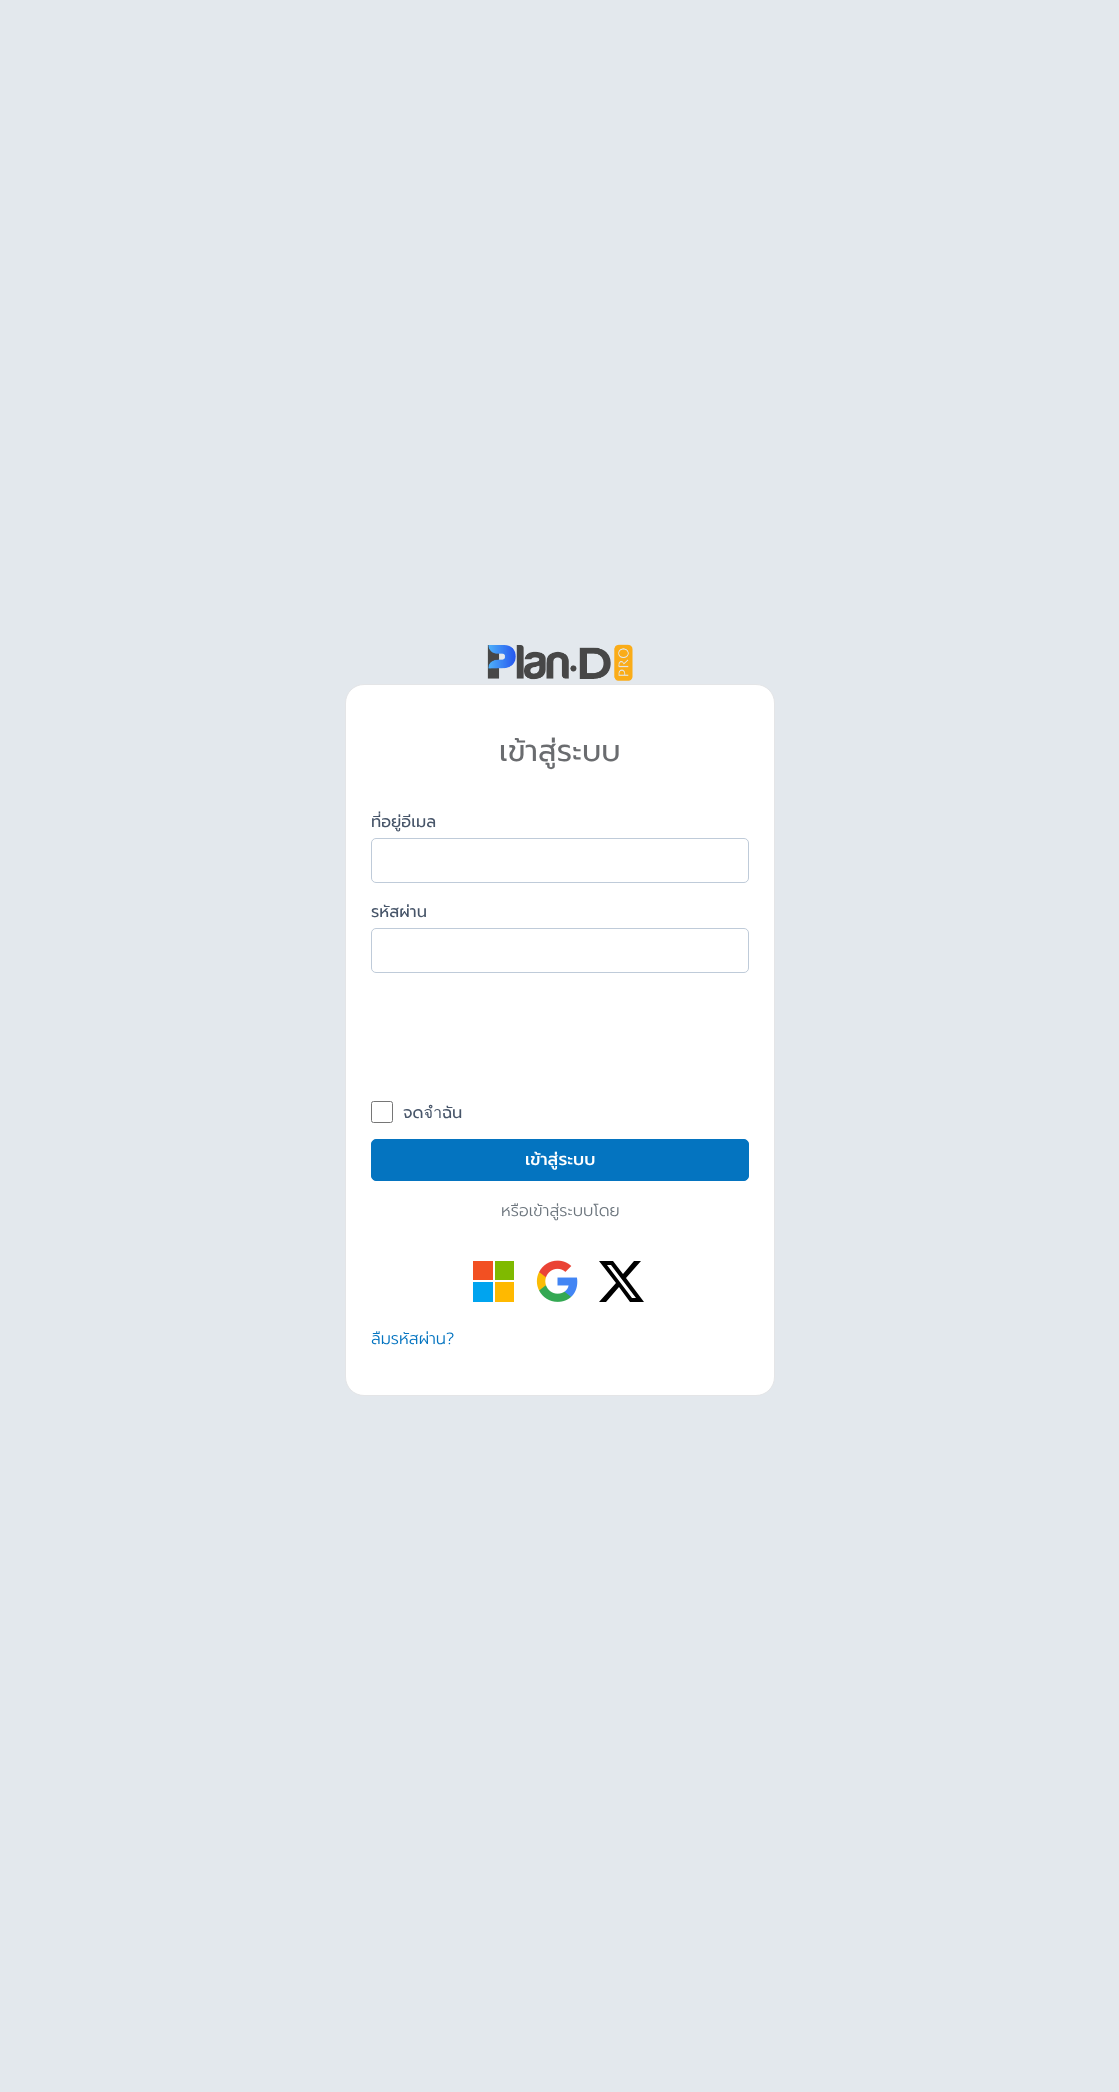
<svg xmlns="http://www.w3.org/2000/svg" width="1119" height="2092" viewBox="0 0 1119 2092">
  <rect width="100%" height="100%" fill="rgb(227,232,237)"/>
  <image x="487" y="644" width="146" height="37" href="pic1.png"/>
  <rect x="345.5" y="684.5" width="429" height="711" rx="18.5" fill="rgb(255,255,255)" stroke="rgb(228,229,231)"/>
  <text x="499" y="761" font-family="Prompt" font-size="30" fill="rgb(106,108,111)">เข้าสู่ระบบ</text>
  <text x="371" y="827" font-family="Prompt" font-size="16.25" fill="rgb(71,85,105)">ที่อยู่อีเมล</text>
  <rect x="371.5" y="838.5" width="377" height="44" rx="4.5" fill="none" stroke="rgb(191,203,217)"/>
  <text x="371" y="917" font-family="Prompt" font-size="16.25" fill="rgb(71,85,105)">รหัสผ่าน</text>
  <rect x="371.5" y="928.5" width="377" height="44" rx="4.5" fill="none" stroke="rgb(191,203,217)"/>
  <rect x="371.5" y="1101.5" width="21" height="21" rx="3.5" fill="none" stroke="rgb(226,232,240)"/>
  <rect x="371.5" y="1101.5" width="21" height="21" rx="2" fill="rgb(255,255,255)" stroke="rgb(118,118,118)"/>
  <text x="403" y="1118" font-family="Prompt" font-size="16.25" fill="rgb(71,85,105)">จดจำฉัน</text>
  <rect x="371.5" y="1139.5" width="377" height="41" rx="4.5" fill="rgb(4,116,192)" stroke="rgb(4,116,192)"/>
  <text x="525" y="1165" font-family="Prompt" font-size="17" font-weight="500" fill="rgb(255,255,255)">เข้าสู่ระบบ</text>
  <text x="501" y="1216" font-family="Prompt" font-size="16.25" font-weight="300" fill="rgb(108,117,125)">หรือเข้าสู่ระบบโดย</text>
  <rect x="473" y="1261" width="20" height="19" fill="rgb(242,80,34)"/>
  <rect x="495" y="1261" width="19" height="19" fill="rgb(127,186,0)"/>
  <rect x="473" y="1282" width="20" height="20" fill="rgb(0,164,239)"/>
  <rect x="495" y="1282" width="19" height="20" fill="rgb(255,185,0)"/>
  <image x="536" y="1260" width="42" height="42" href="pic2.png"/>
  <path d="M634 1261H641L626 1278L644 1302H630L619 1287L606 1302H599L616 1283L599 1261H613L623 1274ZM632 1298H636L611 1265H607Z" fill="rgb(0,0,0)"/>
  <text x="371" y="1344" font-family="Prompt" font-size="16.25" font-weight="300" fill="rgb(4,116,192)">ลืมรหัสผ่าน?</text>
</svg>
